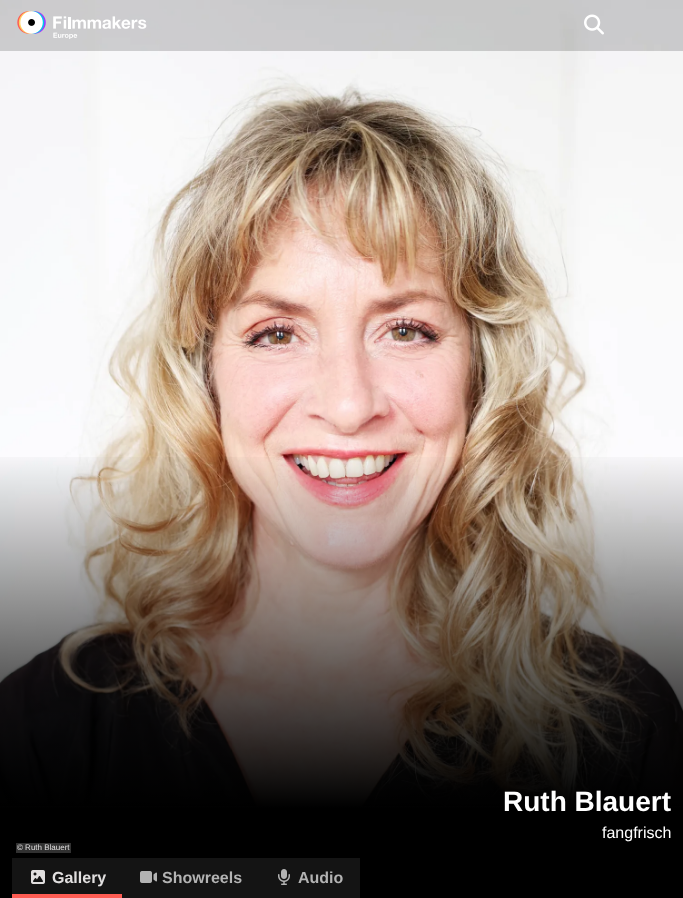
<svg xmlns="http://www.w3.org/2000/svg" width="683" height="898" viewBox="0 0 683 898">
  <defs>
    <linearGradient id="g1" gradientUnits="userSpaceOnUse" x1="342" y1="898" x2="342" y2="0"><stop offset="0" stop-color="rgb(0,0,0)"/><stop offset="0.1" stop-color="rgb(0,0,0)"/><stop offset="0.5" stop-color="rgb(0,0,0)" stop-opacity="0"/></linearGradient>
  </defs>
  <rect width="100%" height="100%" fill="rgb(255,255,255)"/>
  <image x="0" y="0" width="683" height="806" href="pic3.png"/>
  <rect x="0" y="0" width="683" height="51" fill="rgba(40,40,40,0.2)"/>
  <image x="17" y="11" width="130" height="28" href="pic1.png"/>
  <image x="584" y="14" width="20" height="21" href="pic2.png"/>
  <rect x="0" y="457" width="683" height="441" fill="url(#g1)"/>
  <rect x="16" y="843" width="55" height="10" fill="rgb(49,49,49)"/>
  <text x="17" y="850" font-family="Liberation Sans" font-size="8" fill="rgb(225,223,223)">© Ruth Blauert</text>
  <text x="503" y="811" font-family="Liberation Sans" font-size="28" font-weight="bold" fill="rgb(255,255,255)">Ruth Blauert</text>
  <text x="602" y="838" font-family="Liberation Sans" font-size="16" fill="rgb(255,255,255)">fangfrisch</text>
  <rect x="12" y="858" width="110" height="36" fill="rgb(20,20,20)"/>
  <rect x="12" y="894" width="110" height="4" fill="rgb(254,92,83)"/>
  <image x="31" y="870" width="14" height="14" href="pic4.png"/>
  <text x="52" y="883" font-family="Liberation Sans" font-size="16" font-weight="bold" fill="rgb(225,223,223)">Gallery</text>
  <rect x="122" y="858" width="238" height="40" fill="rgb(20,20,20)"/>
  <image x="140" y="871" width="17" height="12" href="pic5.png"/>
  <text x="162" y="883" font-family="Liberation Sans" font-size="16" font-weight="bold" fill="rgb(179,179,179)">Showreels</text>
  <image x="278" y="869" width="12" height="16" href="pic6.png"/>
  <text x="298" y="883" font-family="Liberation Sans" font-size="16" font-weight="bold" fill="rgb(179,179,179)">Audio</text>
</svg>
